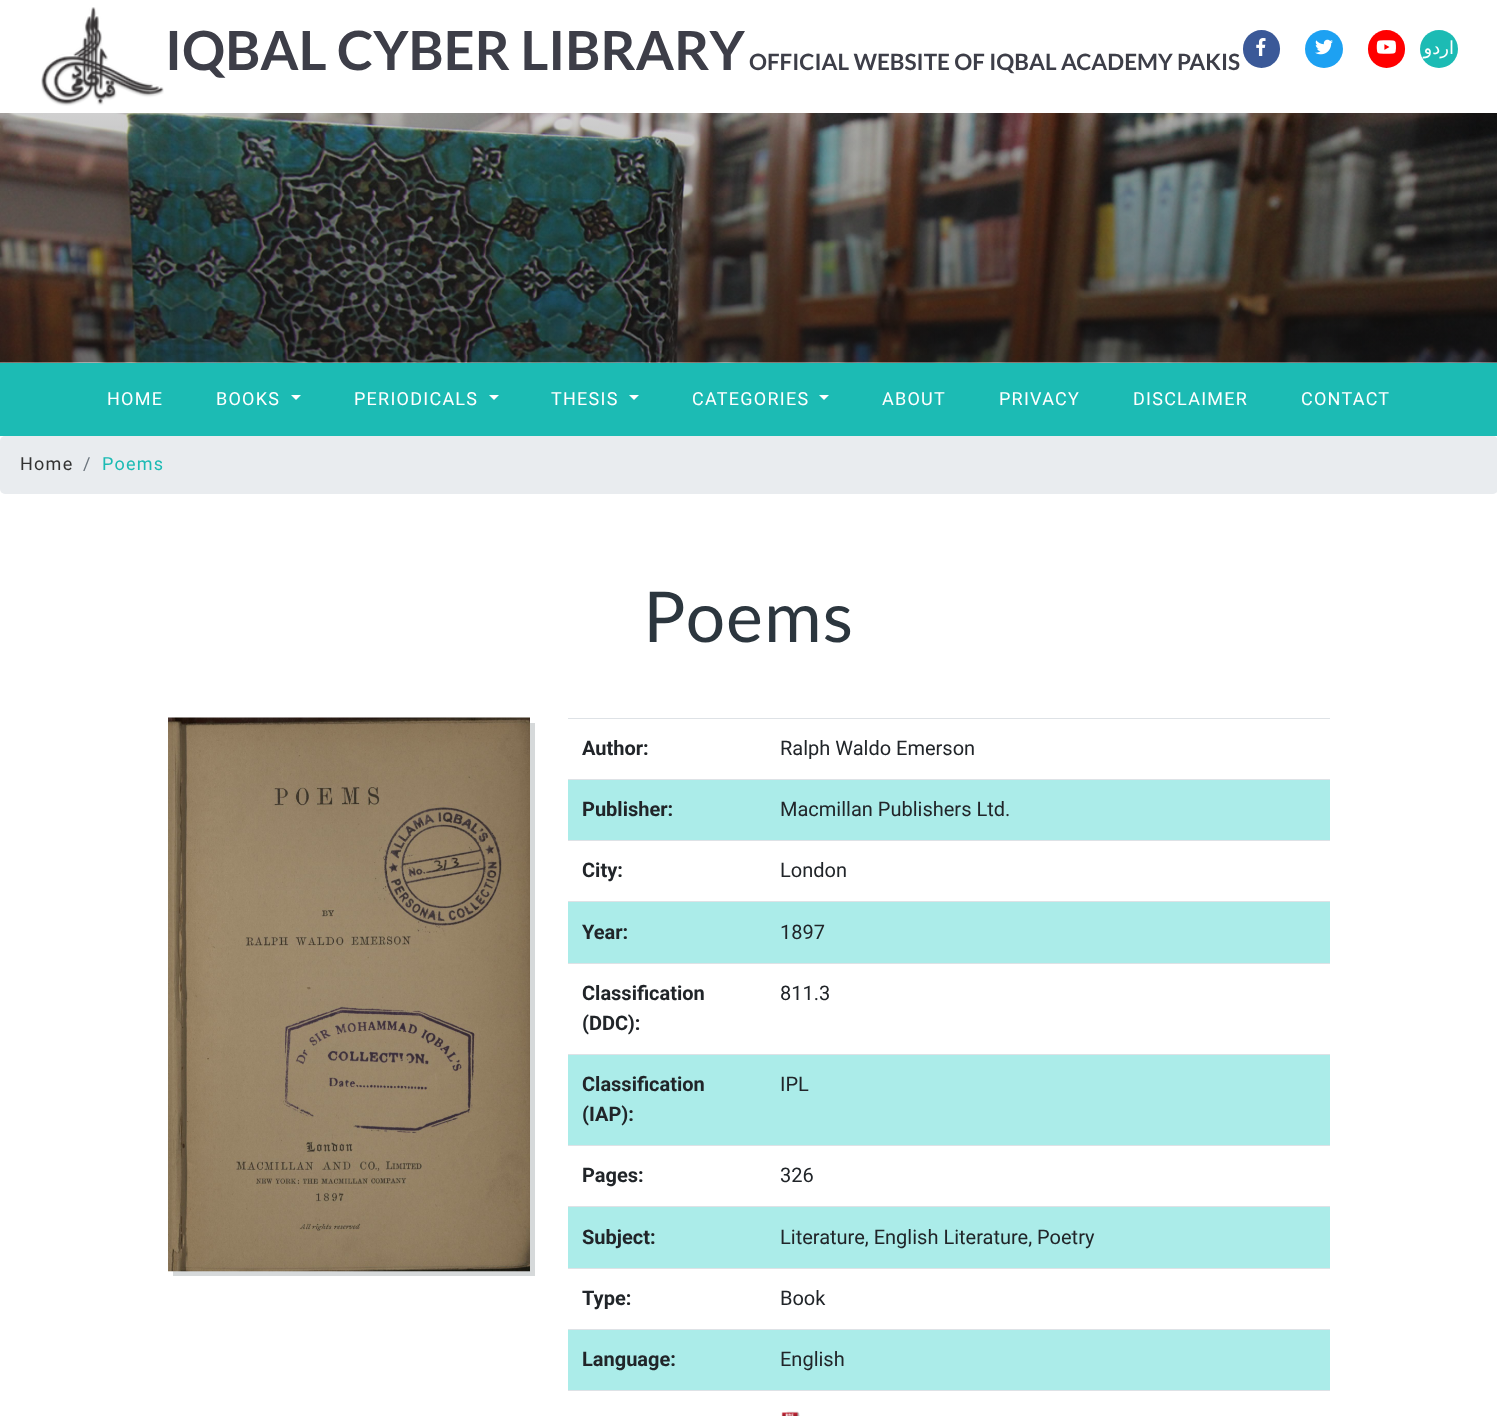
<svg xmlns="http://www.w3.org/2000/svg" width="1497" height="1416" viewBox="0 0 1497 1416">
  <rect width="100%" height="100%" fill="rgb(255,255,255)"/>
  <image x="41" y="7" width="123" height="99" href="pic1.png"/>
  <text x="165" y="70" font-family="Lato" font-size="54" font-weight="bold" fill="rgb(61,62,72)">IQBAL CYBER LIBRARY</text>
  <text x="749" y="70" font-family="Lato" font-size="22.5" font-weight="bold" fill="rgb(61,62,72)">OFFICIAL WEBSITE OF IQBAL ACADEMY PAKIS</text>
  <rect x="1243" y="30" width="37" height="38" rx="18.5" fill="rgb(59,89,152)"/>
  <image x="1256" y="38" width="10" height="18" href="pic2.png"/>
  <circle cx="1324" cy="49" r="19" fill="rgb(29,161,242)"/>
  <image x="1315" y="39" width="18" height="16" href="pic3.png"/>
  <rect x="1368" y="30" width="37" height="38" rx="18.5" fill="rgb(255,0,0)"/>
  <image x="1376" y="40" width="20" height="14" href="pic4.png"/>
  <circle cx="1439" cy="49" r="19" fill="rgb(28,187,180)"/>
  <text x="1454" y="54" font-family="DejaVu Sans" font-size="18" direction="rtl" fill="rgb(255,255,255)">اردو</text>
  <image x="0" y="113" width="1497" height="250" href="pic5.png"/>
  <rect x="0" y="363" width="1497" height="73" fill="rgb(28,187,180)"/>
  <g font-family="Roboto" font-size="18" letter-spacing="1.25" fill="rgb(255,255,255)">
    <text x="107" y="405">HOME</text>
    <text x="216" y="405">BOOKS</text>
  </g>
  <path d="M291 395H301L296 400Z" fill="rgb(255,255,255)"/>
  <text x="354" y="405" font-family="Roboto" font-size="18" letter-spacing="1.25" fill="rgb(255,255,255)">PERIODICALS</text>
  <path d="M489 395H499L494 400Z" fill="rgb(255,255,255)"/>
  <text x="551" y="405" font-family="Roboto" font-size="18" letter-spacing="1.25" fill="rgb(255,255,255)">THESIS</text>
  <path d="M629 395H639L634 400Z" fill="rgb(255,255,255)"/>
  <text x="692" y="405" font-family="Roboto" font-size="18" letter-spacing="1.25" fill="rgb(255,255,255)">CATEGORIES</text>
  <path d="M819 395H829L824 400Z" fill="rgb(255,255,255)"/>
  <g font-family="Roboto" font-size="18" letter-spacing="1.25" fill="rgb(255,255,255)">
    <text x="882" y="405">ABOUT</text>
    <text x="999" y="405">PRIVACY</text>
    <text x="1133" y="405">DISCLAIMER</text>
    <text x="1301" y="405">CONTACT</text>
  </g>
  <rect x="0" y="436" width="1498" height="58" rx="5" fill="rgb(233,236,239)"/>
  <text x="20" y="470" font-family="Roboto" font-size="18" letter-spacing="1.25" fill="rgb(51,51,51)">Home</text>
  <text x="83" y="470" font-family="Roboto" font-size="18" letter-spacing="1.25" fill="rgb(108,117,125)">/</text>
  <text x="102" y="470" font-family="Roboto" font-size="18" letter-spacing="1.25" fill="rgb(28,187,180)">Poems</text>
  <text x="643" y="642" font-family="Lato" font-size="70" letter-spacing="1.25" fill="rgb(44,54,62)">Poems</text>
  <path d="M173 1271V1276H535V723H530V1271Z" fill="rgb(214,217,218)"/>
  <image x="168" y="717" width="362" height="555" href="pic6.png"/>
  <text x="582" y="755" font-family="Roboto" font-size="20" font-weight="bold" fill="rgb(33,37,41)">Author:</text>
  <rect x="568" y="718" width="762" height="1" fill="rgb(222,226,230)"/>
  <text x="780" y="755" font-family="Roboto" font-size="20" fill="rgb(33,37,41)">Ralph Waldo Emerson</text>
  <rect x="568" y="780" width="762" height="60" fill="rgb(171,236,233)"/>
  <text x="582" y="816" font-family="Roboto" font-size="20" font-weight="bold" fill="rgb(33,37,41)">Publisher:</text>
  <rect x="568" y="779" width="762" height="1" fill="rgb(222,226,230)"/>
  <text x="780" y="816" font-family="Roboto" font-size="20" fill="rgb(33,37,41)">Macmillan Publishers Ltd.</text>
  <text x="582" y="877" font-family="Roboto" font-size="20" font-weight="bold" fill="rgb(33,37,41)">City:</text>
  <rect x="568" y="840" width="762" height="1" fill="rgb(222,226,230)"/>
  <text x="780" y="877" font-family="Roboto" font-size="20" fill="rgb(33,37,41)">London</text>
  <rect x="568" y="902" width="762" height="61" fill="rgb(171,236,233)"/>
  <text x="582" y="939" font-family="Roboto" font-size="20" font-weight="bold" fill="rgb(33,37,41)">Year:</text>
  <rect x="568" y="901" width="762" height="1" fill="rgb(222,226,230)"/>
  <text x="780" y="939" font-family="Roboto" font-size="20" fill="rgb(33,37,41)">1897</text>
  <g font-family="Roboto" font-size="20" font-weight="bold" fill="rgb(33,37,41)">
    <text>
      <tspan x="582" y="1000">Classification</tspan>
      <tspan x="582" y="1030">(DDC):</tspan>
    </text>
  </g>
  <rect x="568" y="963" width="762" height="1" fill="rgb(222,226,230)"/>
  <text x="780" y="1000" font-family="Roboto" font-size="20" fill="rgb(33,37,41)">811.3</text>
  <rect x="568" y="1055" width="762" height="90" fill="rgb(171,236,233)"/>
  <g font-family="Roboto" font-size="20" font-weight="bold" fill="rgb(33,37,41)">
    <text>
      <tspan x="582" y="1091">Classification</tspan>
      <tspan x="582" y="1121">(IAP):</tspan>
    </text>
  </g>
  <rect x="568" y="1054" width="762" height="1" fill="rgb(222,226,230)"/>
  <text x="780" y="1091" font-family="Roboto" font-size="20" fill="rgb(33,37,41)">IPL</text>
  <text x="582" y="1182" font-family="Roboto" font-size="20" font-weight="bold" fill="rgb(33,37,41)">Pages:</text>
  <rect x="568" y="1145" width="762" height="1" fill="rgb(222,226,230)"/>
  <text x="780" y="1182" font-family="Roboto" font-size="20" fill="rgb(33,37,41)">326</text>
  <rect x="568" y="1207" width="762" height="61" fill="rgb(171,236,233)"/>
  <text x="582" y="1244" font-family="Roboto" font-size="20" font-weight="bold" fill="rgb(33,37,41)">Subject:</text>
  <rect x="568" y="1206" width="762" height="1" fill="rgb(222,226,230)"/>
  <text x="780" y="1244" font-family="Roboto" font-size="20" fill="rgb(33,37,41)">Literature, English Literature, Poetry</text>
  <text x="582" y="1305" font-family="Roboto" font-size="20" font-weight="bold" fill="rgb(33,37,41)">Type:</text>
  <rect x="568" y="1268" width="762" height="1" fill="rgb(222,226,230)"/>
  <text x="780" y="1305" font-family="Roboto" font-size="20" fill="rgb(33,37,41)">Book</text>
  <rect x="568" y="1330" width="762" height="60" fill="rgb(171,236,233)"/>
  <text x="582" y="1366" font-family="Roboto" font-size="20" font-weight="bold" fill="rgb(33,37,41)">Language:</text>
  <rect x="568" y="1329" width="762" height="1" fill="rgb(222,226,230)"/>
  <text x="780" y="1366" font-family="Roboto" font-size="20" fill="rgb(33,37,41)">English</text>
  <rect x="568" y="1390" width="762" height="1" fill="rgb(222,226,230)"/>
  <image x="781" y="1411" width="19" height="5" href="pic7.png"/>
</svg>
